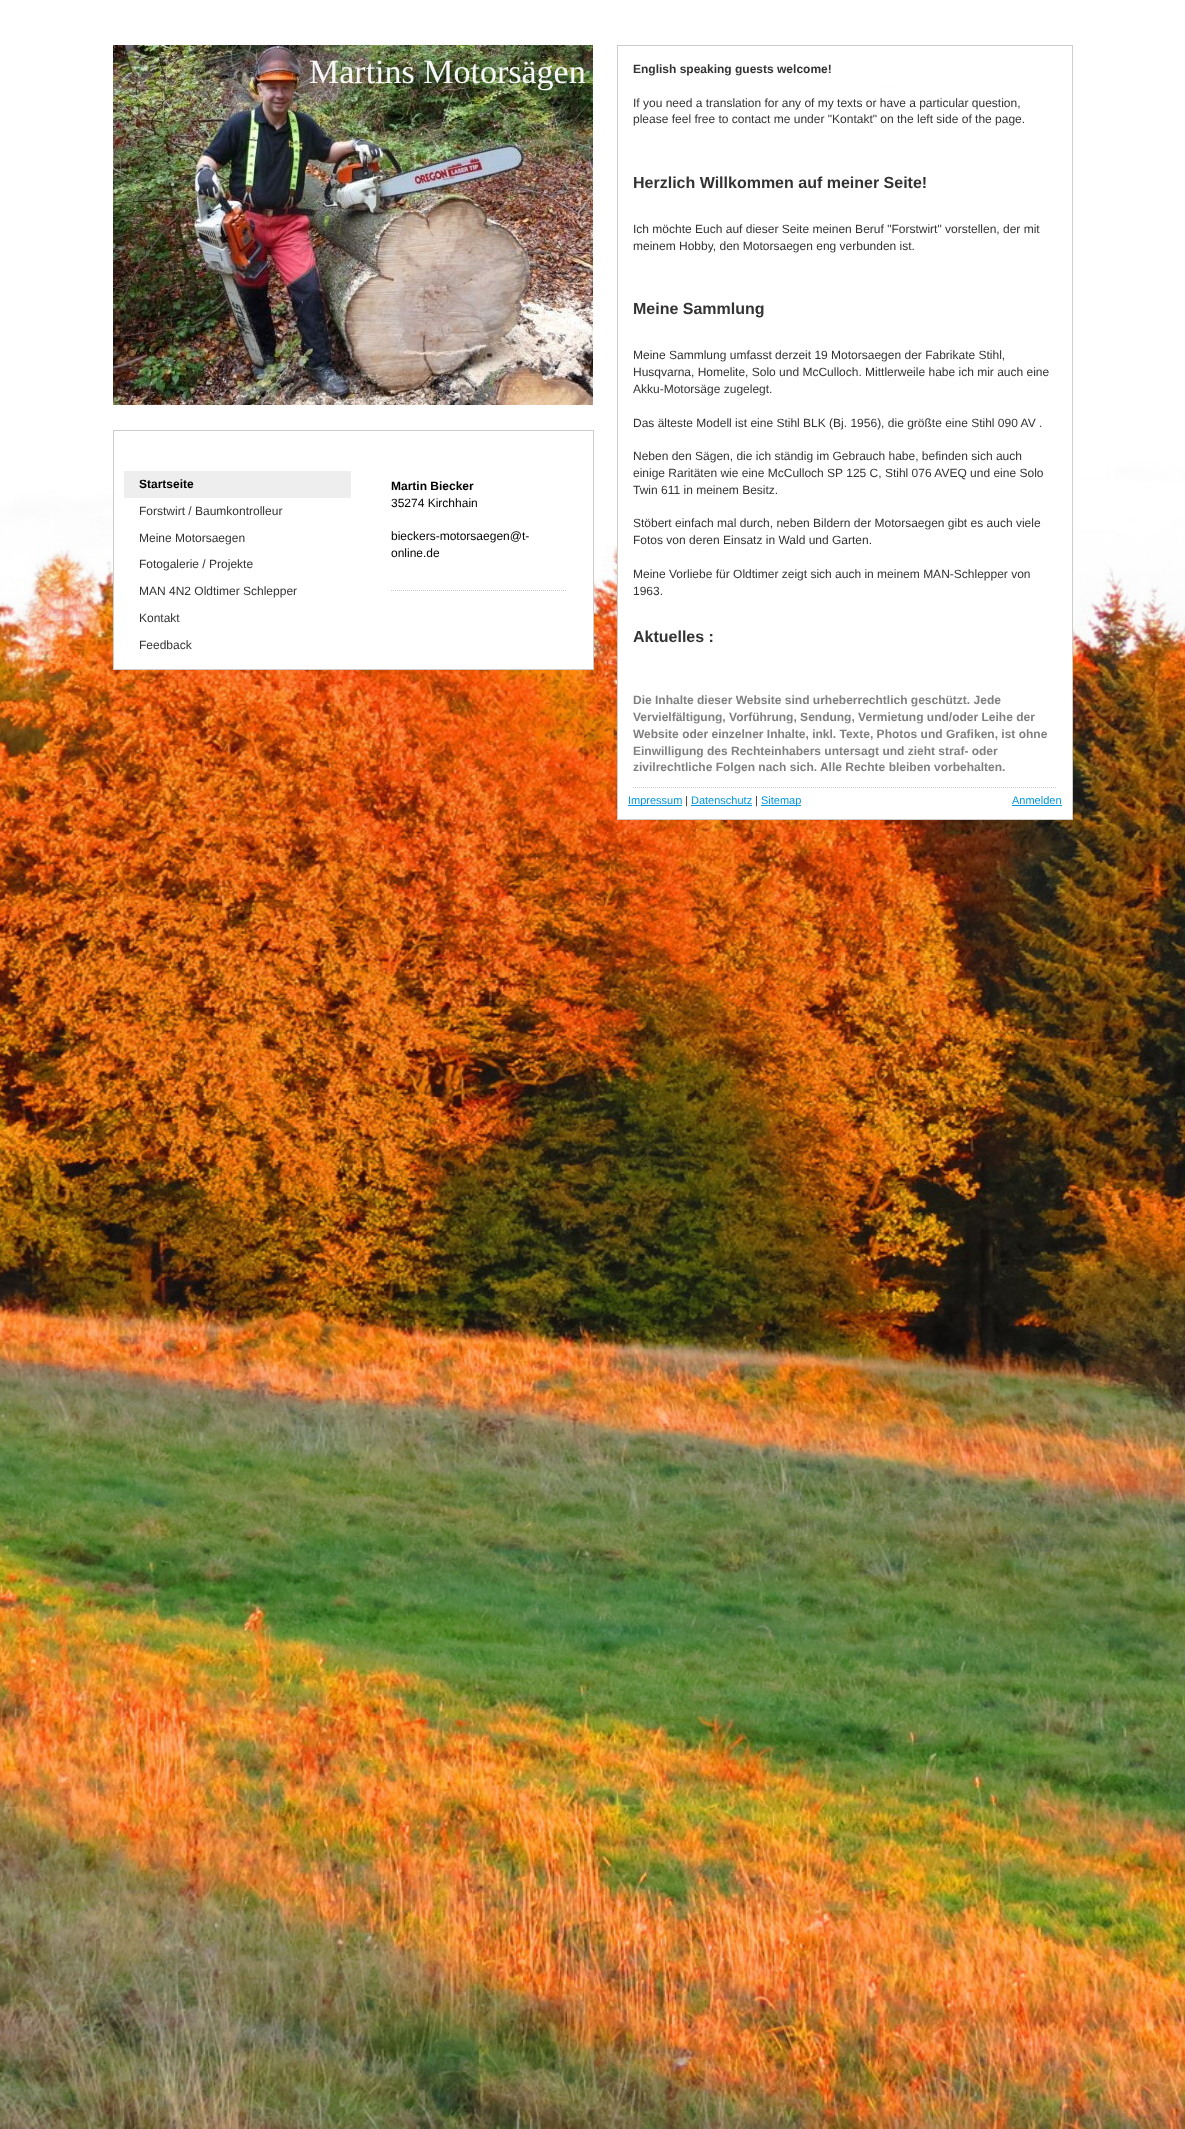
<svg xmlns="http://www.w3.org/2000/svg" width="1185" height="2129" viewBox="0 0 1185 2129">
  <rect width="100%" height="100%" fill="rgb(255,255,255)"/>
  <image x="0" y="0" width="1185" height="2129" href="pic1.png"/>
  <image x="113" y="45" width="480" height="360" href="pic2.png"/>
  <text x="309" y="83" font-family="Liberation Serif" font-size="34" fill="rgb(247,247,247)">Martins Motorsägen</text>
  <rect x="114" y="496" width="479" height="173" fill="rgb(255,255,255)"/>
  <rect x="113.5" y="430.5" width="480" height="239" fill="none" stroke="rgb(204,204,204)"/>
  <rect x="124" y="471" width="227" height="27" fill="rgb(238,238,238)"/>
  <text x="139" y="488" font-family="Liberation Sans" font-size="12" font-weight="bold" fill="rgb(0,0,0)">Startseite</text>
  <g font-family="Liberation Sans" font-size="12" fill="rgb(51,51,51)">
    <text x="139" y="515">Forstwirt / Baumkontrolleur</text>
    <text x="139" y="542">Meine Motorsaegen</text>
    <text x="139" y="568">Fotogalerie / Projekte</text>
    <text x="139" y="595">MAN 4N2 Oldtimer Schlepper</text>
    <text x="139" y="622">Kontakt</text>
    <text x="139" y="649">Feedback</text>
  </g>
  <text x="391" y="490" font-family="Liberation Sans" font-size="12" font-weight="bold" fill="rgb(0,0,0)">Martin Biecker</text>
  <g font-family="Liberation Sans" font-size="12" fill="rgb(0,0,0)">
    <text x="391" y="507">35274 Kirchhain</text>
    <text>
      <tspan x="391" y="540">bieckers-motorsaegen@t-</tspan>
      <tspan x="391" y="557">online.de</tspan>
    </text>
  </g>
  <path d="M391 590.5H566" fill="none" stroke="rgb(204,204,204)" stroke-dasharray="1 1"/>
  <rect x="618" y="87" width="454" height="732" fill="rgb(255,255,255)"/>
  <rect x="617.5" y="45.5" width="455" height="774" fill="none" stroke="rgb(204,204,204)"/>
  <text x="633" y="73" font-family="Liberation Sans" font-size="12" font-weight="bold" fill="rgb(51,51,51)">English speaking guests welcome!</text>
  <g font-family="Liberation Sans" font-size="12" fill="rgb(51,51,51)">
    <text>
      <tspan x="633" y="107">If you need a translation for any of my texts or have a particular question,</tspan>
      <tspan x="633" y="123">please feel free to contact me under "Kontakt" on the left side of the page.</tspan>
    </text>
  </g>
  <text x="633" y="188" font-family="Liberation Sans" font-size="16" font-weight="bold" fill="rgb(51,51,51)">Herzlich Willkommen auf meiner Seite!</text>
  <g font-family="Liberation Sans" font-size="12" fill="rgb(51,51,51)">
    <text>
      <tspan x="633" y="233">Ich möchte Euch auf dieser Seite meinen Beruf "Forstwirt" vorstellen, der mit</tspan>
      <tspan x="633" y="250">meinem Hobby, den Motorsaegen eng verbunden ist.</tspan>
    </text>
  </g>
  <text x="633" y="314" font-family="Liberation Sans" font-size="16" font-weight="bold" fill="rgb(51,51,51)">Meine Sammlung</text>
  <g font-family="Liberation Sans" font-size="12" fill="rgb(51,51,51)">
    <text>
      <tspan x="633" y="359">Meine Sammlung umfasst derzeit 19 Motorsaegen der Fabrikate Stihl,</tspan>
      <tspan x="633" y="376">Husqvarna, Homelite, Solo und McCulloch. Mittlerweile habe ich mir auch eine</tspan>
      <tspan x="633" y="393">Akku-Motorsäge zugelegt.</tspan>
    </text>
    <text x="633" y="427">Das älteste Modell ist eine Stihl BLK (Bj. 1956), die größte eine Stihl 090 AV .</text>
    <text>
      <tspan x="633" y="460">Neben den Sägen, die ich ständig im Gebrauch habe, befinden sich auch</tspan>
      <tspan x="633" y="477">einige Raritäten wie eine McCulloch SP 125 C, Stihl 076 AVEQ und eine Solo</tspan>
      <tspan x="633" y="494">Twin 611 in meinem Besitz.</tspan>
    </text>
    <text>
      <tspan x="633" y="527">Stöbert einfach mal durch, neben Bildern der Motorsaegen gibt es auch viele</tspan>
      <tspan x="633" y="544">Fotos von deren Einsatz in Wald und Garten.</tspan>
    </text>
    <text>
      <tspan x="633" y="578">Meine Vorliebe für Oldtimer zeigt sich auch in meinem MAN-Schlepper von</tspan>
      <tspan x="633" y="595">1963.</tspan>
    </text>
  </g>
  <text x="633" y="642" font-family="Liberation Sans" font-size="16" font-weight="bold" fill="rgb(51,51,51)">Aktuelles :</text>
  <g font-family="Liberation Sans" font-size="12" font-weight="bold" fill="rgb(128,128,128)">
    <text>
      <tspan x="633" y="704">Die Inhalte dieser Website sind urheberrechtlich geschützt. Jede</tspan>
      <tspan x="633" y="721">Vervielfältigung, Vorführung, Sendung, Vermietung und/oder Leihe der</tspan>
      <tspan x="633" y="738">Website oder einzelner Inhalte, inkl. Texte, Photos und Grafiken, ist ohne</tspan>
      <tspan x="633" y="755">Einwilligung des Rechteinhabers untersagt und zieht straf- oder</tspan>
      <tspan x="633" y="771">zivilrechtliche Folgen nach sich. Alle Rechte bleiben vorbehalten.</tspan>
    </text>
  </g>
  <path d="M633 787.5H1057" fill="none" stroke="rgb(204,204,204)" stroke-dasharray="1 1"/>
  <rect x="628" y="805" width="54" height="1" fill="rgb(0,151,223)"/>
  <text x="628" y="804" font-family="Liberation Sans" font-size="11" fill="rgb(0,151,223)">Impressum</text>
  <text x="685" y="804" font-family="Liberation Sans" font-size="11" fill="rgb(51,51,51)">|</text>
  <text x="691" y="804" font-family="Liberation Sans" font-size="11" fill="rgb(0,151,223)">Datenschutz</text>
  <rect x="691" y="805" width="61" height="1" fill="rgb(0,151,223)"/>
  <text x="755" y="804" font-family="Liberation Sans" font-size="11" fill="rgb(51,51,51)">|</text>
  <rect x="761" y="805" width="40" height="1" fill="rgb(0,151,223)"/>
  <g font-family="Liberation Sans" font-size="11" fill="rgb(0,151,223)">
    <text x="761" y="804">Sitemap</text>
    <text x="1012" y="804">Anmelden</text>
  </g>
  <rect x="1012" y="805" width="50" height="1" fill="rgb(0,151,223)"/>
</svg>
